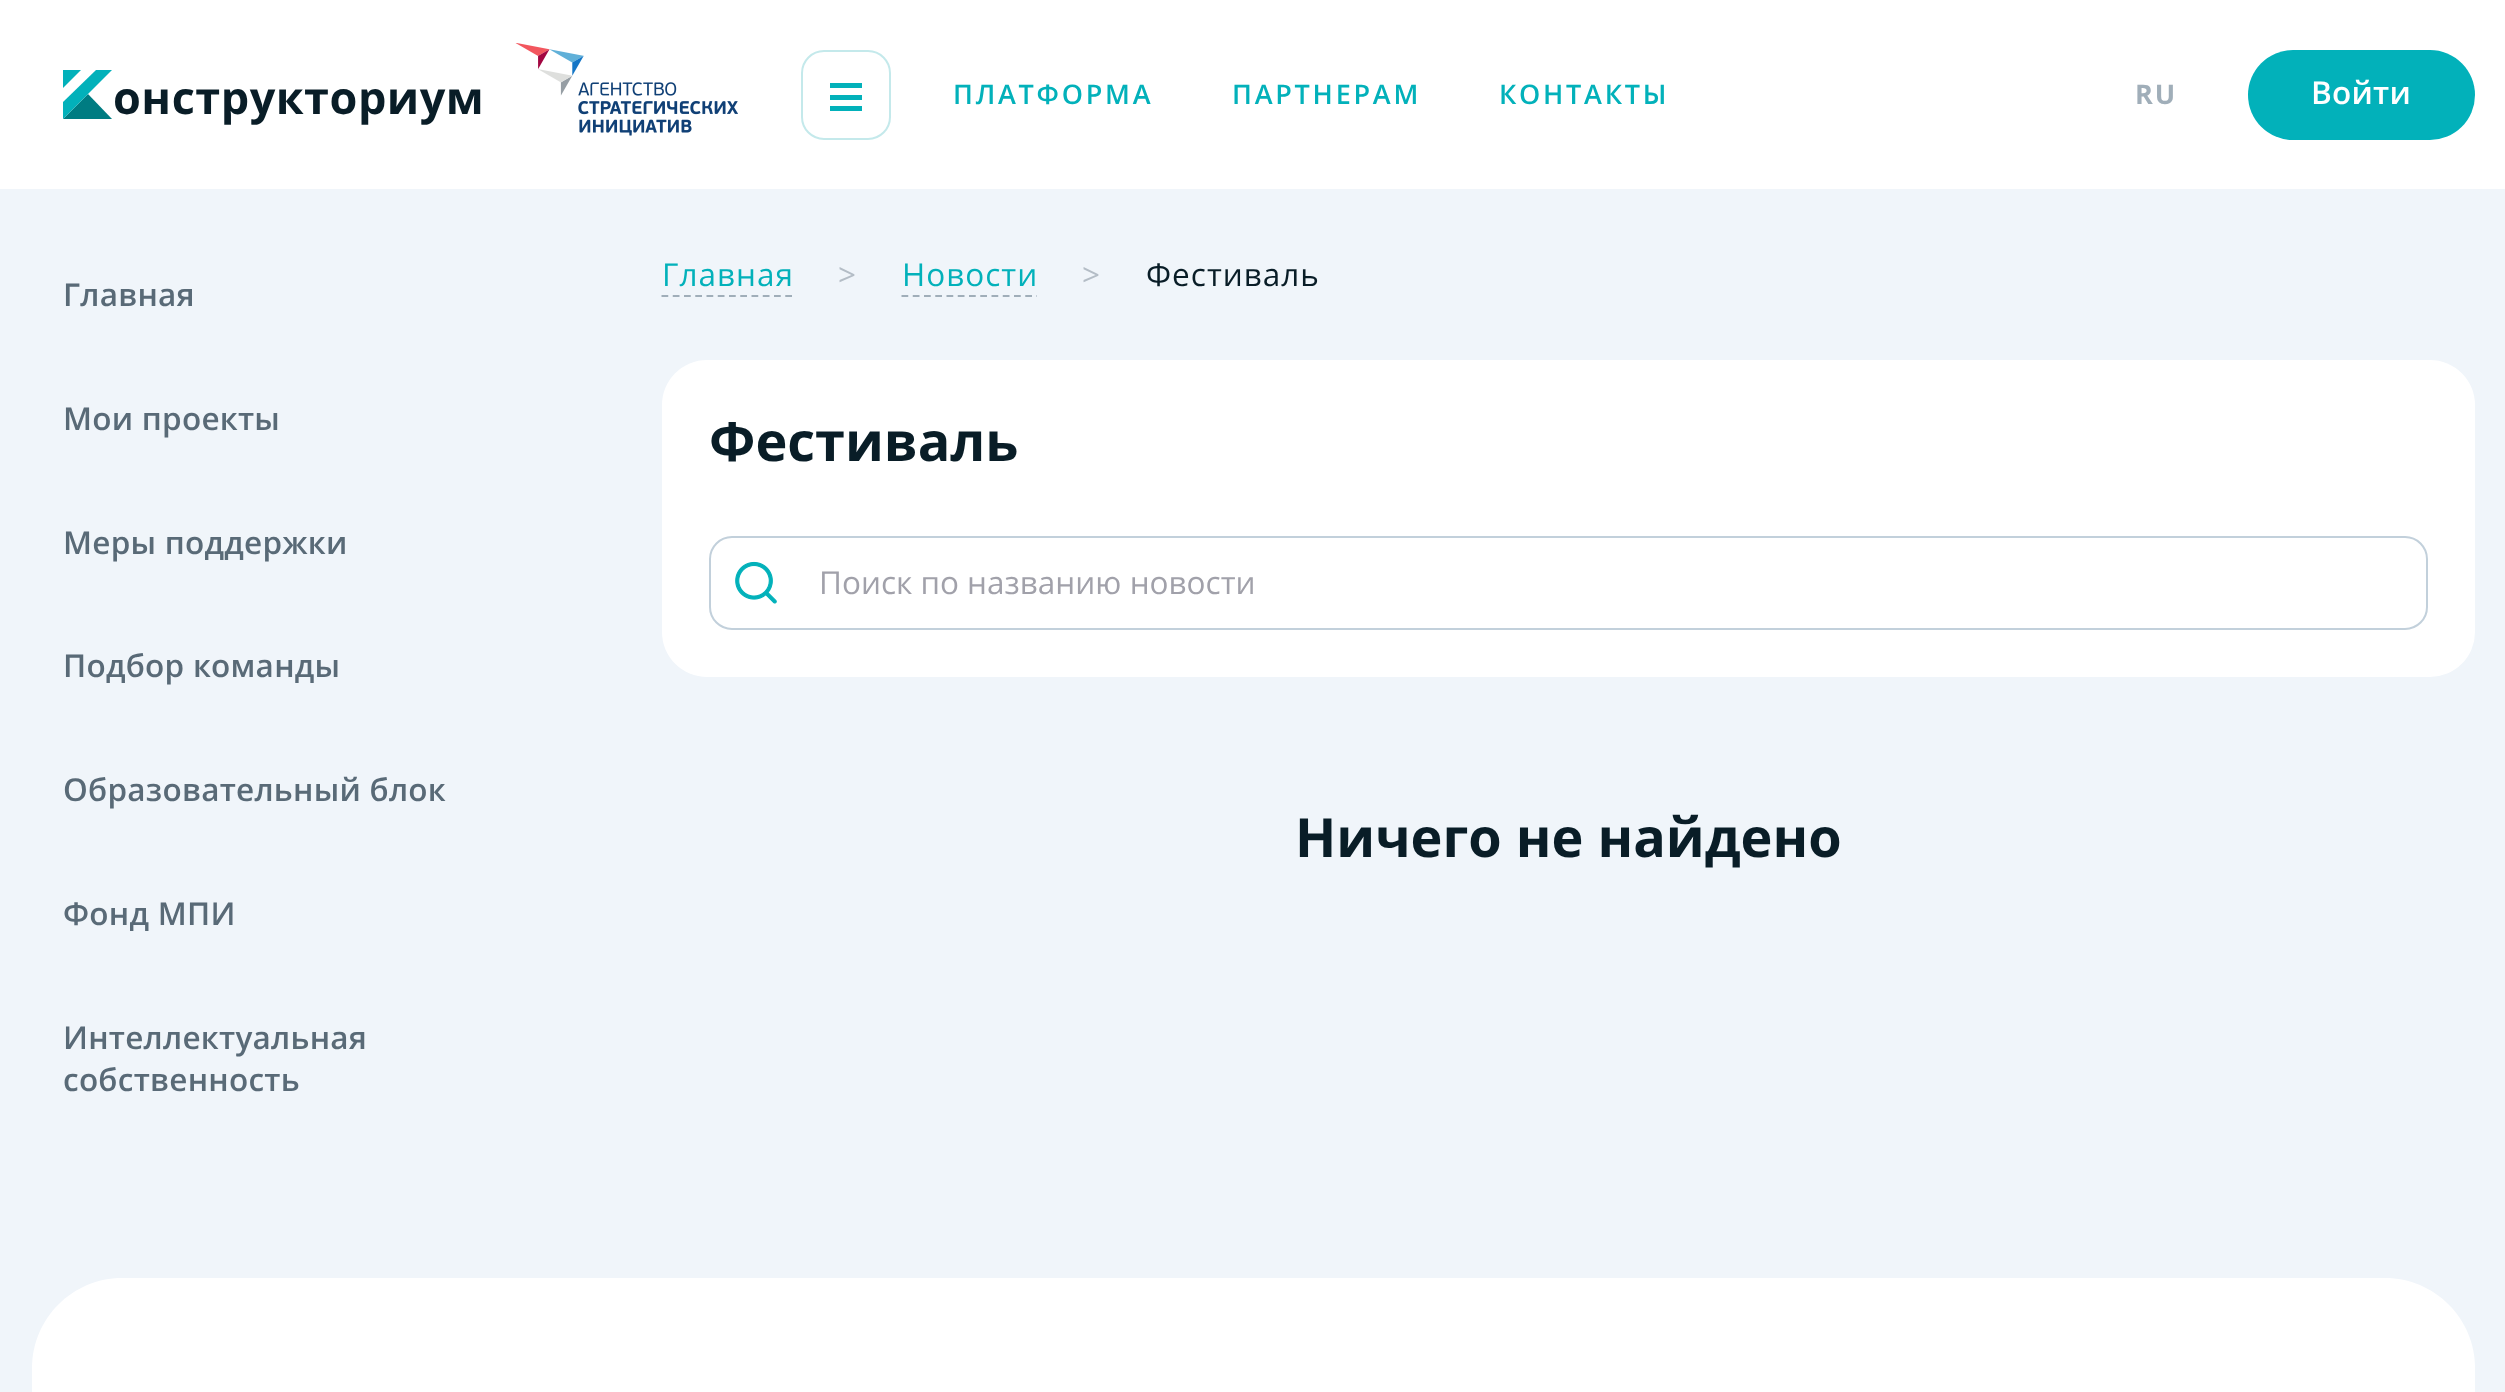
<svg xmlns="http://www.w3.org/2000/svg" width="2505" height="1392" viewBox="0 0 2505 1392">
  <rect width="100%" height="100%" fill="rgb(240,245,250)"/>
  <rect x="0" y="0" width="2505" height="189" fill="rgb(255,255,255)"/>
  <path d="M112 119L88 94L63 119Z" fill="rgb(0,124,130)"/>
  <path d="M112 70H96L63 102V119Z" fill="rgb(2,177,186)"/>
  <path d="M63 88V70H81Z" fill="rgb(2,177,186)"/>
  <text x="113" y="114" font-family="Open Sans" font-size="45" font-weight="bold" letter-spacing="0.5" fill="rgb(9,29,39)">онструкториум</text>
  <image x="515" y="43" width="223" height="93" href="pic1.png"/>
  <rect x="802" y="51" width="88" height="88" rx="22" fill="none" stroke="rgb(196,233,235)" stroke-width="2"/>
  <rect x="830" y="83" width="32" height="5" fill="rgb(2,177,186)"/>
  <rect x="830" y="95" width="32" height="5" fill="rgb(2,177,186)"/>
  <rect x="830" y="106" width="32" height="5" fill="rgb(2,177,186)"/>
  <g font-family="Open Sans" font-size="27" font-weight="600" letter-spacing="2.75" fill="rgb(2,177,186)">
    <text x="953" y="104">ПЛАТФОРМА</text>
    <text x="1232" y="104">ПАРТНЕРАМ</text>
    <text x="1499" y="104">КОНТАКТЫ</text>
  </g>
  <text x="2135" y="104" font-family="Open Sans" font-size="27" font-weight="bold" letter-spacing="2" fill="rgb(160,174,185)">RU</text>
  <rect x="2248" y="50" width="227" height="90" rx="45" fill="rgb(2,177,186)"/>
  <text x="2311" y="104" font-family="Open Sans" font-size="31.5" font-weight="600" letter-spacing="0.25" fill="rgb(255,255,255)">Войти</text>
  <g font-family="Open Sans" font-size="31.5" font-weight="600" letter-spacing="0.25" fill="rgb(89,106,119)">
    <text x="63" y="306">Главная</text>
    <text x="63" y="430">Мои проекты</text>
    <text x="63" y="554">Меры поддержки</text>
    <text x="63" y="677">Подбор команды</text>
    <text x="63" y="801">Образовательный блок</text>
    <text x="63" y="925">Фонд МПИ</text>
    <text>
      <tspan x="63" y="1049">Интеллектуальная</tspan>
      <tspan x="63" y="1091">собственность</tspan>
    </text>
  </g>
  <text x="662" y="286" font-family="Open Sans" font-size="31.5" letter-spacing="1" fill="rgb(2,177,186)">Главная</text>
  <path d="M661.5 296H792.5" fill="none" stroke="rgb(160,174,185)" stroke-width="2.2" stroke-dasharray="6.75 4.5"/>
  <text x="838" y="286" font-family="Open Sans" font-size="31.5" letter-spacing="1" fill="rgb(180,189,198)">&gt;</text>
  <text x="902" y="286" font-family="Open Sans" font-size="31.5" letter-spacing="1" fill="rgb(2,177,186)">Новости</text>
  <path d="M901.5 296H1037" fill="none" stroke="rgb(160,174,185)" stroke-width="2.2" stroke-dasharray="6.75 4.5"/>
  <text x="1082" y="286" font-family="Open Sans" font-size="31.5" letter-spacing="1" fill="rgb(180,189,198)">&gt;</text>
  <text x="1146" y="286" font-family="Open Sans" font-size="31.5" letter-spacing="1" fill="rgb(9,29,39)">Фестиваль</text>
  <rect x="662" y="360" width="1813" height="317" rx="45" fill="rgb(255,255,255)"/>
  <text x="709" y="461" font-family="Open Sans" font-size="54" font-weight="bold" fill="rgb(9,29,39)">Фестиваль</text>
  <rect x="710" y="537" width="1717" height="92" rx="22" fill="none" stroke="rgb(194,208,219)" stroke-width="2"/>
  <image x="735" y="561" width="42" height="43" href="pic2.png"/>
  <text x="819" y="594" font-family="Open Sans" font-size="31.5" fill="rgb(161,161,170)">Поиск по названию новости</text>
  <text x="1295" y="857" font-family="Open Sans" font-size="54" font-weight="bold" fill="rgb(9,29,39)">Ничего не найдено</text>
  <path d="M122 1278H2385C2434.5 1278 2475 1318.5 2475 1368V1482H32V1368C32 1318.5 72.5 1278 122 1278Z" fill="rgb(255,255,255)"/>
</svg>
